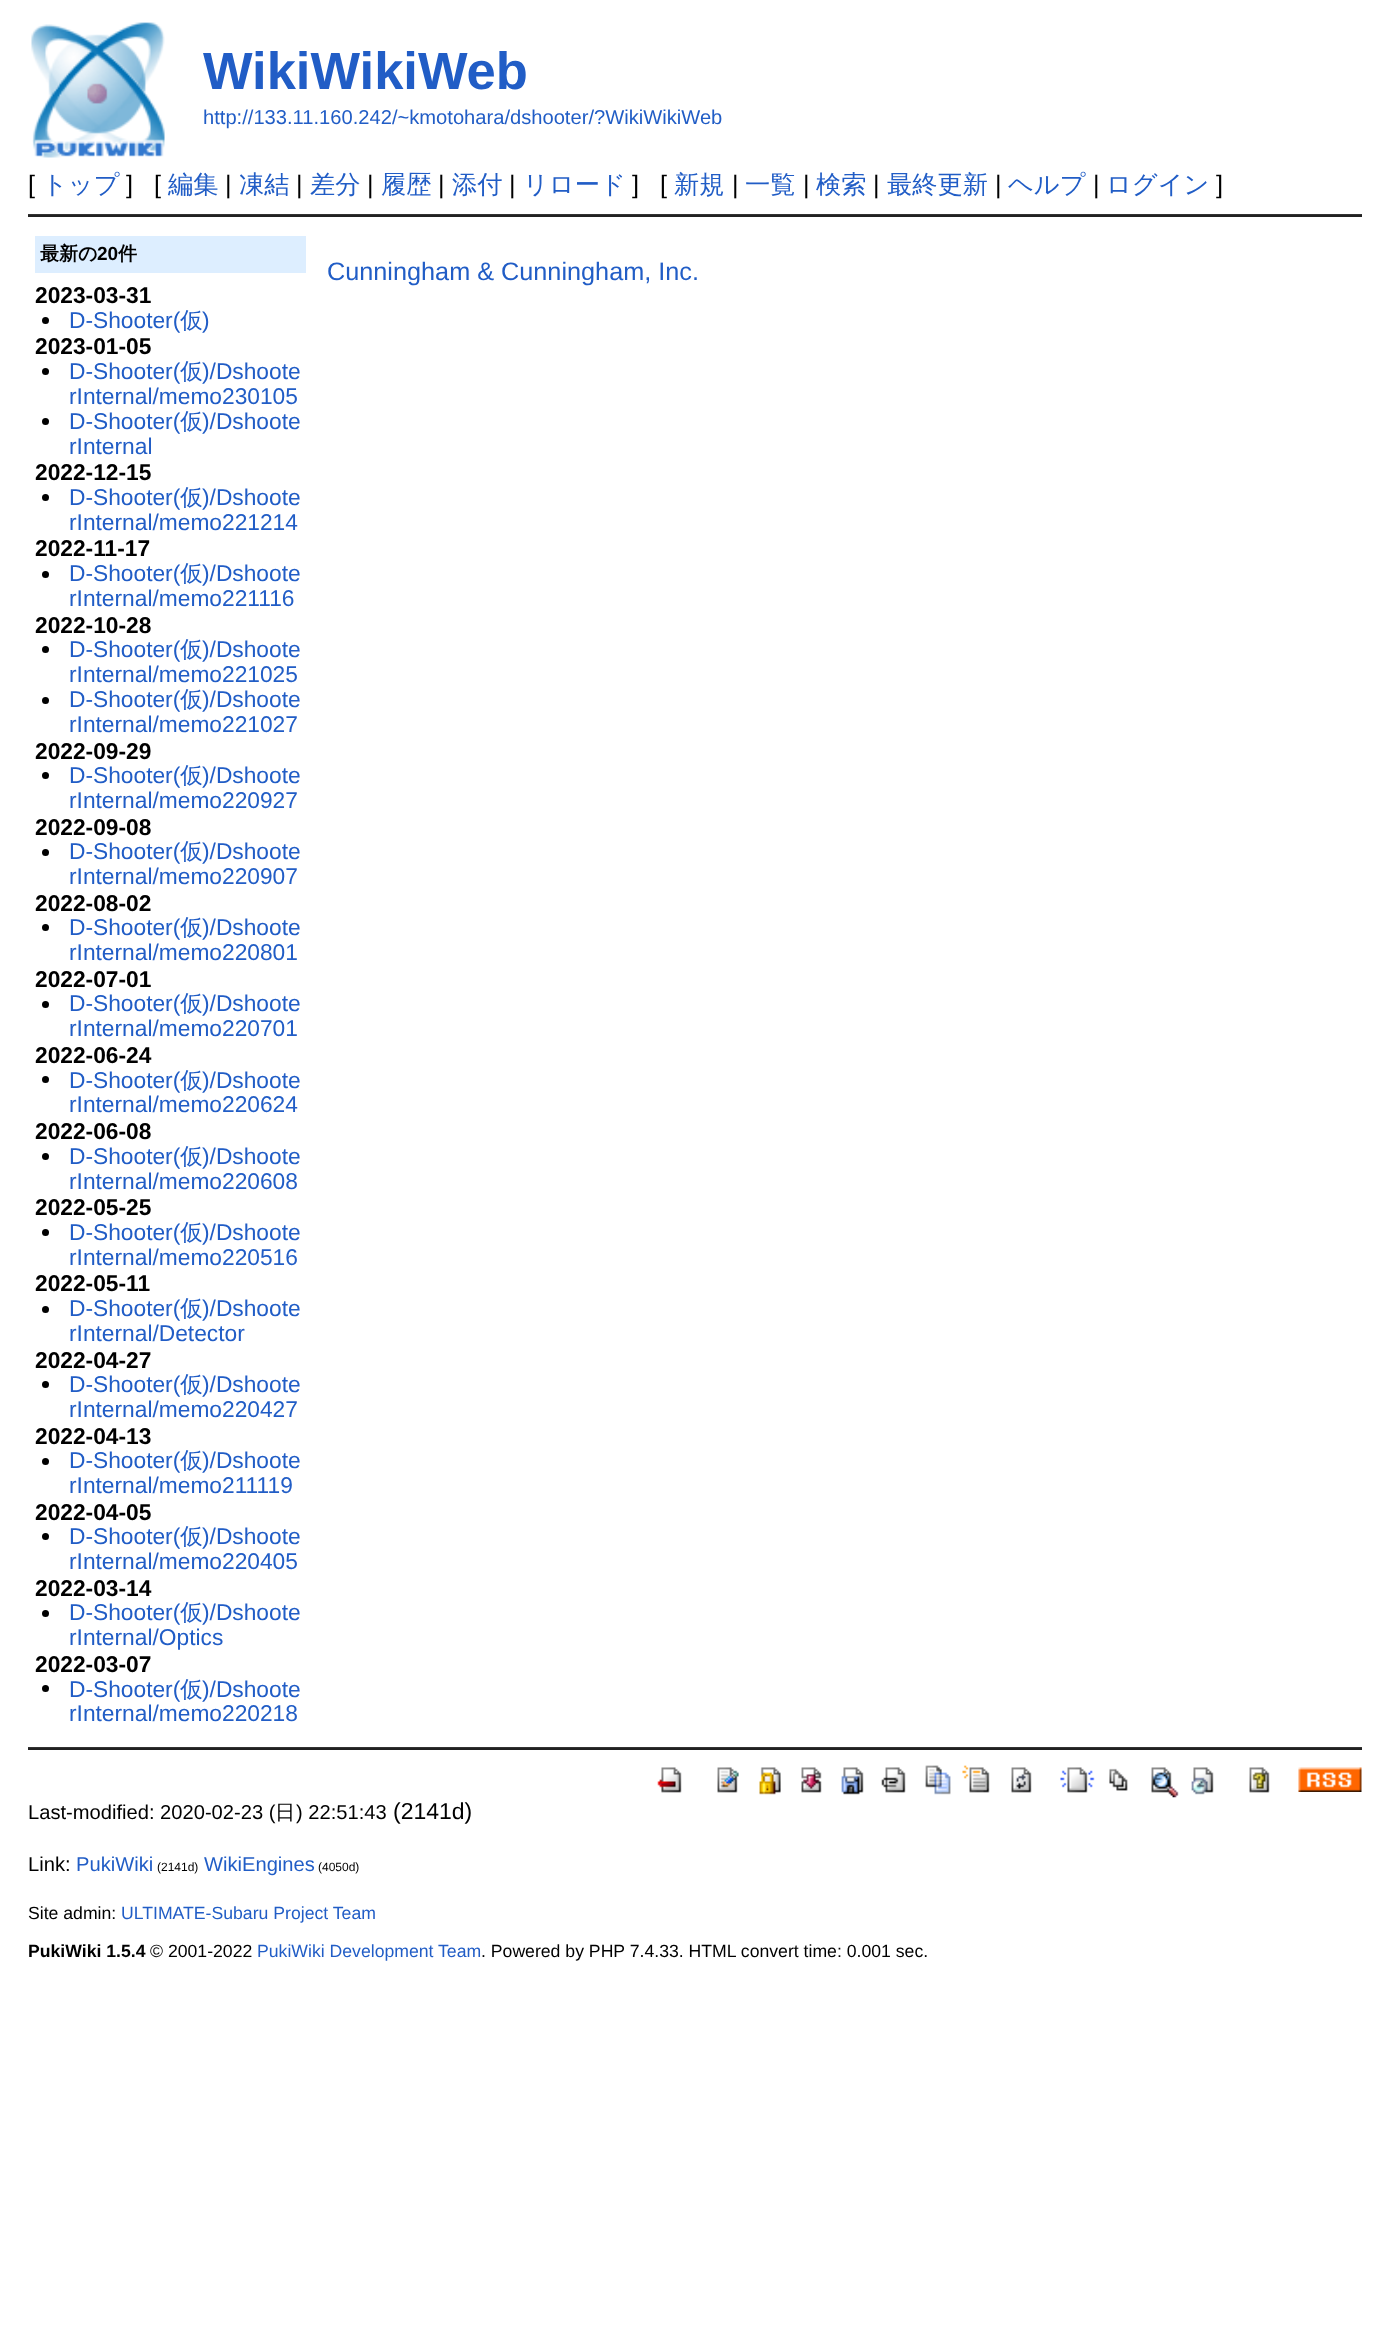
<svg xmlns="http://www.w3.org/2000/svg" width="1388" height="2337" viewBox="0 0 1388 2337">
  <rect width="100%" height="100%" fill="rgb(255,255,255)"/>
  <image x="31" y="22" width="134" height="136" href="pic1.png"/>
  <text x="203" y="89" font-family="Liberation Sans" font-size="52.5" font-weight="bold" fill="rgb(33,93,198)">WikiWikiWeb</text>
  <text x="203" y="124" font-family="Liberation Sans" font-size="20.15" fill="rgb(33,93,198)">http://133.11.160.242/~kmotohara/dshooter/?WikiWikiWeb</text>
  <text x="28" y="193" font-family="Liberation Sans" font-size="25.25" fill="rgb(0,0,0)">[</text>
  <text x="42" y="193" font-family="WenQuanYi Zen Hei" font-size="25.25" font-weight="500" fill="rgb(33,93,198)">トップ</text>
  <g font-family="Liberation Sans" font-size="25.25" fill="rgb(0,0,0)">
    <text x="126" y="193">]</text>
    <text x="154" y="193">[</text>
  </g>
  <text x="168" y="193" font-family="WenQuanYi Zen Hei" font-size="25.25" font-weight="500" fill="rgb(33,93,198)">編集</text>
  <text x="225" y="193" font-family="Liberation Sans" font-size="25.25" fill="rgb(0,0,0)">|</text>
  <text x="239" y="193" font-family="WenQuanYi Zen Hei" font-size="25.25" font-weight="500" fill="rgb(33,93,198)">凍結</text>
  <text x="296" y="193" font-family="Liberation Sans" font-size="25.25" fill="rgb(0,0,0)">|</text>
  <text x="310" y="193" font-family="WenQuanYi Zen Hei" font-size="25.25" font-weight="500" fill="rgb(33,93,198)">差分</text>
  <text x="367" y="193" font-family="Liberation Sans" font-size="25.25" fill="rgb(0,0,0)">|</text>
  <text x="381" y="193" font-family="WenQuanYi Zen Hei" font-size="25.25" font-weight="500" fill="rgb(33,93,198)">履歴</text>
  <text x="438" y="193" font-family="Liberation Sans" font-size="25.25" fill="rgb(0,0,0)">|</text>
  <text x="452" y="193" font-family="WenQuanYi Zen Hei" font-size="25.25" font-weight="500" fill="rgb(33,93,198)">添付</text>
  <text x="509" y="193" font-family="Liberation Sans" font-size="25.25" fill="rgb(0,0,0)">|</text>
  <text x="523" y="193" font-family="WenQuanYi Zen Hei" font-size="25.25" font-weight="500" fill="rgb(33,93,198)">リロード</text>
  <g font-family="Liberation Sans" font-size="25.25" fill="rgb(0,0,0)">
    <text x="632" y="193">]</text>
    <text x="660" y="193">[</text>
  </g>
  <text x="674" y="193" font-family="WenQuanYi Zen Hei" font-size="25.25" font-weight="500" fill="rgb(33,93,198)">新規</text>
  <text x="732" y="193" font-family="Liberation Sans" font-size="25.25" fill="rgb(0,0,0)">|</text>
  <text x="745" y="193" font-family="WenQuanYi Zen Hei" font-size="25.25" font-weight="500" fill="rgb(33,93,198)">一覧</text>
  <text x="803" y="193" font-family="Liberation Sans" font-size="25.25" fill="rgb(0,0,0)">|</text>
  <text x="816" y="193" font-family="WenQuanYi Zen Hei" font-size="25.25" font-weight="500" fill="rgb(33,93,198)">検索</text>
  <text x="873" y="193" font-family="Liberation Sans" font-size="25.25" fill="rgb(0,0,0)">|</text>
  <text x="887" y="193" font-family="WenQuanYi Zen Hei" font-size="25.25" font-weight="500" fill="rgb(33,93,198)">最終更新</text>
  <text x="995" y="193" font-family="Liberation Sans" font-size="25.25" fill="rgb(0,0,0)">|</text>
  <text x="1008" y="193" font-family="WenQuanYi Zen Hei" font-size="25.25" font-weight="500" fill="rgb(33,93,198)">ヘルプ</text>
  <text x="1093" y="193" font-family="Liberation Sans" font-size="25.25" fill="rgb(0,0,0)">|</text>
  <text x="1106" y="193" font-family="WenQuanYi Zen Hei" font-size="25.25" font-weight="500" fill="rgb(33,93,198)">ログイン</text>
  <text x="1216" y="193" font-family="Liberation Sans" font-size="25.25" fill="rgb(0,0,0)">]</text>
  <rect x="28" y="214" width="1334" height="1" fill="rgb(51,51,51)"/>
  <rect x="28" y="215" width="1334" height="2" fill="rgb(34,34,34)"/>
  <rect x="35" y="236" width="271" height="37" fill="rgb(221,238,255)"/>
  <text x="40" y="260" font-family="WenQuanYi Zen Hei" font-size="19" font-weight="bold" fill="rgb(0,0,0)">最新の</text>
  <text x="97" y="260" font-family="Liberation Sans" font-size="19" font-weight="bold" fill="rgb(0,0,0)">20</text>
  <text x="118" y="260" font-family="WenQuanYi Zen Hei" font-size="19" font-weight="bold" fill="rgb(0,0,0)">件</text>
  <text x="35" y="303" font-family="Liberation Sans" font-size="22.75" font-weight="bold" fill="rgb(0,0,0)">2023-03-31</text>
  <circle cx="45.5" cy="320.5" r="3.5" fill="rgb(0,0,0)"/>
  <text x="69" y="328" font-family="Liberation Sans" font-size="22.75" fill="rgb(33,93,198)">D-Shooter(</text>
  <text x="180" y="328" font-family="WenQuanYi Zen Hei" font-size="22.75" font-weight="500" fill="rgb(33,93,198)">仮</text>
  <text x="202" y="328" font-family="Liberation Sans" font-size="22.75" fill="rgb(33,93,198)">)</text>
  <text x="35" y="354" font-family="Liberation Sans" font-size="22.75" font-weight="bold" fill="rgb(0,0,0)">2023-01-05</text>
  <circle cx="45.5" cy="371.5" r="3.5" fill="rgb(0,0,0)"/>
  <text x="69" y="379" font-family="Liberation Sans" font-size="22.75" fill="rgb(33,93,198)">D-Shooter(</text>
  <text x="180" y="379" font-family="WenQuanYi Zen Hei" font-size="22.75" font-weight="500" fill="rgb(33,93,198)">仮</text>
  <g font-family="Liberation Sans" font-size="22.75" fill="rgb(33,93,198)">
    <text x="202" y="379">)/Dshoote</text>
    <text x="69" y="404">rInternal/memo230105</text>
  </g>
  <circle cx="45.5" cy="421.5" r="3.5" fill="rgb(0,0,0)"/>
  <text x="69" y="429" font-family="Liberation Sans" font-size="22.75" fill="rgb(33,93,198)">D-Shooter(</text>
  <text x="180" y="429" font-family="WenQuanYi Zen Hei" font-size="22.75" font-weight="500" fill="rgb(33,93,198)">仮</text>
  <g font-family="Liberation Sans" font-size="22.75" fill="rgb(33,93,198)">
    <text x="202" y="429">)/Dshoote</text>
    <text x="69" y="454">rInternal</text>
  </g>
  <text x="35" y="480" font-family="Liberation Sans" font-size="22.75" font-weight="bold" fill="rgb(0,0,0)">2022-12-15</text>
  <circle cx="45.5" cy="497.5" r="3.5" fill="rgb(0,0,0)"/>
  <text x="69" y="505" font-family="Liberation Sans" font-size="22.75" fill="rgb(33,93,198)">D-Shooter(</text>
  <text x="180" y="505" font-family="WenQuanYi Zen Hei" font-size="22.75" font-weight="500" fill="rgb(33,93,198)">仮</text>
  <g font-family="Liberation Sans" font-size="22.75" fill="rgb(33,93,198)">
    <text x="202" y="505">)/Dshoote</text>
    <text x="69" y="530">rInternal/memo221214</text>
  </g>
  <text x="35" y="556" font-family="Liberation Sans" font-size="22.75" font-weight="bold" fill="rgb(0,0,0)">2022-11-17</text>
  <circle cx="45.5" cy="574.5" r="3.5" fill="rgb(0,0,0)"/>
  <text x="69" y="581" font-family="Liberation Sans" font-size="22.75" fill="rgb(33,93,198)">D-Shooter(</text>
  <text x="180" y="581" font-family="WenQuanYi Zen Hei" font-size="22.75" font-weight="500" fill="rgb(33,93,198)">仮</text>
  <g font-family="Liberation Sans" font-size="22.75" fill="rgb(33,93,198)">
    <text x="202" y="581">)/Dshoote</text>
    <text x="69" y="606">rInternal/memo221116</text>
  </g>
  <text x="35" y="633" font-family="Liberation Sans" font-size="22.75" font-weight="bold" fill="rgb(0,0,0)">2022-10-28</text>
  <circle cx="45.5" cy="649.5" r="3.5" fill="rgb(0,0,0)"/>
  <text x="69" y="657" font-family="Liberation Sans" font-size="22.75" fill="rgb(33,93,198)">D-Shooter(</text>
  <text x="180" y="657" font-family="WenQuanYi Zen Hei" font-size="22.75" font-weight="500" fill="rgb(33,93,198)">仮</text>
  <g font-family="Liberation Sans" font-size="22.75" fill="rgb(33,93,198)">
    <text x="202" y="657">)/Dshoote</text>
    <text x="69" y="682">rInternal/memo221025</text>
  </g>
  <circle cx="45.5" cy="700.5" r="3.5" fill="rgb(0,0,0)"/>
  <text x="69" y="707" font-family="Liberation Sans" font-size="22.75" fill="rgb(33,93,198)">D-Shooter(</text>
  <text x="180" y="707" font-family="WenQuanYi Zen Hei" font-size="22.75" font-weight="500" fill="rgb(33,93,198)">仮</text>
  <g font-family="Liberation Sans" font-size="22.75" fill="rgb(33,93,198)">
    <text x="202" y="707">)/Dshoote</text>
    <text x="69" y="732">rInternal/memo221027</text>
  </g>
  <text x="35" y="759" font-family="Liberation Sans" font-size="22.75" font-weight="bold" fill="rgb(0,0,0)">2022-09-29</text>
  <circle cx="45.5" cy="775.5" r="3.5" fill="rgb(0,0,0)"/>
  <text x="69" y="783" font-family="Liberation Sans" font-size="22.75" fill="rgb(33,93,198)">D-Shooter(</text>
  <text x="180" y="783" font-family="WenQuanYi Zen Hei" font-size="22.75" font-weight="500" fill="rgb(33,93,198)">仮</text>
  <g font-family="Liberation Sans" font-size="22.75" fill="rgb(33,93,198)">
    <text x="202" y="783">)/Dshoote</text>
    <text x="69" y="808">rInternal/memo220927</text>
  </g>
  <text x="35" y="835" font-family="Liberation Sans" font-size="22.75" font-weight="bold" fill="rgb(0,0,0)">2022-09-08</text>
  <circle cx="45.5" cy="852.5" r="3.5" fill="rgb(0,0,0)"/>
  <text x="69" y="859" font-family="Liberation Sans" font-size="22.75" fill="rgb(33,93,198)">D-Shooter(</text>
  <text x="180" y="859" font-family="WenQuanYi Zen Hei" font-size="22.75" font-weight="500" fill="rgb(33,93,198)">仮</text>
  <g font-family="Liberation Sans" font-size="22.75" fill="rgb(33,93,198)">
    <text x="202" y="859">)/Dshoote</text>
    <text x="69" y="884">rInternal/memo220907</text>
  </g>
  <text x="35" y="911" font-family="Liberation Sans" font-size="22.75" font-weight="bold" fill="rgb(0,0,0)">2022-08-02</text>
  <circle cx="45.5" cy="927.5" r="3.5" fill="rgb(0,0,0)"/>
  <text x="69" y="935" font-family="Liberation Sans" font-size="22.75" fill="rgb(33,93,198)">D-Shooter(</text>
  <text x="180" y="935" font-family="WenQuanYi Zen Hei" font-size="22.75" font-weight="500" fill="rgb(33,93,198)">仮</text>
  <g font-family="Liberation Sans" font-size="22.75" fill="rgb(33,93,198)">
    <text x="202" y="935">)/Dshoote</text>
    <text x="69" y="960">rInternal/memo220801</text>
  </g>
  <text x="35" y="987" font-family="Liberation Sans" font-size="22.75" font-weight="bold" fill="rgb(0,0,0)">2022-07-01</text>
  <circle cx="45.5" cy="1004.5" r="3.5" fill="rgb(0,0,0)"/>
  <text x="69" y="1011" font-family="Liberation Sans" font-size="22.75" fill="rgb(33,93,198)">D-Shooter(</text>
  <text x="180" y="1011" font-family="WenQuanYi Zen Hei" font-size="22.75" font-weight="500" fill="rgb(33,93,198)">仮</text>
  <g font-family="Liberation Sans" font-size="22.75" fill="rgb(33,93,198)">
    <text x="202" y="1011">)/Dshoote</text>
    <text x="69" y="1036">rInternal/memo220701</text>
  </g>
  <text x="35" y="1063" font-family="Liberation Sans" font-size="22.75" font-weight="bold" fill="rgb(0,0,0)">2022-06-24</text>
  <circle cx="45.5" cy="1079.5" r="3.5" fill="rgb(0,0,0)"/>
  <text x="69" y="1088" font-family="Liberation Sans" font-size="22.75" fill="rgb(33,93,198)">D-Shooter(</text>
  <text x="180" y="1088" font-family="WenQuanYi Zen Hei" font-size="22.75" font-weight="500" fill="rgb(33,93,198)">仮</text>
  <g font-family="Liberation Sans" font-size="22.75" fill="rgb(33,93,198)">
    <text x="202" y="1088">)/Dshoote</text>
    <text x="69" y="1112">rInternal/memo220624</text>
  </g>
  <text x="35" y="1139" font-family="Liberation Sans" font-size="22.75" font-weight="bold" fill="rgb(0,0,0)">2022-06-08</text>
  <circle cx="45.5" cy="1156.5" r="3.5" fill="rgb(0,0,0)"/>
  <text x="69" y="1164" font-family="Liberation Sans" font-size="22.75" fill="rgb(33,93,198)">D-Shooter(</text>
  <text x="180" y="1164" font-family="WenQuanYi Zen Hei" font-size="22.75" font-weight="500" fill="rgb(33,93,198)">仮</text>
  <g font-family="Liberation Sans" font-size="22.75" fill="rgb(33,93,198)">
    <text x="202" y="1164">)/Dshoote</text>
    <text x="69" y="1189">rInternal/memo220608</text>
  </g>
  <text x="35" y="1215" font-family="Liberation Sans" font-size="22.75" font-weight="bold" fill="rgb(0,0,0)">2022-05-25</text>
  <circle cx="45.5" cy="1232.5" r="3.5" fill="rgb(0,0,0)"/>
  <text x="69" y="1240" font-family="Liberation Sans" font-size="22.75" fill="rgb(33,93,198)">D-Shooter(</text>
  <text x="180" y="1240" font-family="WenQuanYi Zen Hei" font-size="22.75" font-weight="500" fill="rgb(33,93,198)">仮</text>
  <g font-family="Liberation Sans" font-size="22.75" fill="rgb(33,93,198)">
    <text x="202" y="1240">)/Dshoote</text>
    <text x="69" y="1265">rInternal/memo220516</text>
  </g>
  <text x="35" y="1291" font-family="Liberation Sans" font-size="22.75" font-weight="bold" fill="rgb(0,0,0)">2022-05-11</text>
  <circle cx="45.5" cy="1309.5" r="3.5" fill="rgb(0,0,0)"/>
  <text x="69" y="1316" font-family="Liberation Sans" font-size="22.75" fill="rgb(33,93,198)">D-Shooter(</text>
  <text x="180" y="1316" font-family="WenQuanYi Zen Hei" font-size="22.75" font-weight="500" fill="rgb(33,93,198)">仮</text>
  <g font-family="Liberation Sans" font-size="22.75" fill="rgb(33,93,198)">
    <text x="202" y="1316">)/Dshoote</text>
    <text x="69" y="1341">rInternal/Detector</text>
  </g>
  <text x="35" y="1368" font-family="Liberation Sans" font-size="22.75" font-weight="bold" fill="rgb(0,0,0)">2022-04-27</text>
  <circle cx="45.5" cy="1384.5" r="3.5" fill="rgb(0,0,0)"/>
  <text x="69" y="1392" font-family="Liberation Sans" font-size="22.75" fill="rgb(33,93,198)">D-Shooter(</text>
  <text x="180" y="1392" font-family="WenQuanYi Zen Hei" font-size="22.75" font-weight="500" fill="rgb(33,93,198)">仮</text>
  <g font-family="Liberation Sans" font-size="22.75" fill="rgb(33,93,198)">
    <text x="202" y="1392">)/Dshoote</text>
    <text x="69" y="1417">rInternal/memo220427</text>
  </g>
  <text x="35" y="1444" font-family="Liberation Sans" font-size="22.75" font-weight="bold" fill="rgb(0,0,0)">2022-04-13</text>
  <circle cx="45.5" cy="1461.5" r="3.5" fill="rgb(0,0,0)"/>
  <text x="69" y="1468" font-family="Liberation Sans" font-size="22.75" fill="rgb(33,93,198)">D-Shooter(</text>
  <text x="180" y="1468" font-family="WenQuanYi Zen Hei" font-size="22.75" font-weight="500" fill="rgb(33,93,198)">仮</text>
  <g font-family="Liberation Sans" font-size="22.75" fill="rgb(33,93,198)">
    <text x="202" y="1468">)/Dshoote</text>
    <text x="69" y="1493">rInternal/memo211119</text>
  </g>
  <text x="35" y="1520" font-family="Liberation Sans" font-size="22.75" font-weight="bold" fill="rgb(0,0,0)">2022-04-05</text>
  <circle cx="45.5" cy="1536.5" r="3.5" fill="rgb(0,0,0)"/>
  <text x="69" y="1544" font-family="Liberation Sans" font-size="22.75" fill="rgb(33,93,198)">D-Shooter(</text>
  <text x="180" y="1544" font-family="WenQuanYi Zen Hei" font-size="22.75" font-weight="500" fill="rgb(33,93,198)">仮</text>
  <g font-family="Liberation Sans" font-size="22.75" fill="rgb(33,93,198)">
    <text x="202" y="1544">)/Dshoote</text>
    <text x="69" y="1569">rInternal/memo220405</text>
  </g>
  <text x="35" y="1596" font-family="Liberation Sans" font-size="22.75" font-weight="bold" fill="rgb(0,0,0)">2022-03-14</text>
  <circle cx="45.5" cy="1613.5" r="3.5" fill="rgb(0,0,0)"/>
  <text x="69" y="1620" font-family="Liberation Sans" font-size="22.75" fill="rgb(33,93,198)">D-Shooter(</text>
  <text x="180" y="1620" font-family="WenQuanYi Zen Hei" font-size="22.75" font-weight="500" fill="rgb(33,93,198)">仮</text>
  <g font-family="Liberation Sans" font-size="22.75" fill="rgb(33,93,198)">
    <text x="202" y="1620">)/Dshoote</text>
    <text x="69" y="1645">rInternal/Optics</text>
  </g>
  <text x="35" y="1672" font-family="Liberation Sans" font-size="22.75" font-weight="bold" fill="rgb(0,0,0)">2022-03-07</text>
  <circle cx="45.5" cy="1688.5" r="3.5" fill="rgb(0,0,0)"/>
  <text x="69" y="1697" font-family="Liberation Sans" font-size="22.75" fill="rgb(33,93,198)">D-Shooter(</text>
  <text x="180" y="1697" font-family="WenQuanYi Zen Hei" font-size="22.75" font-weight="500" fill="rgb(33,93,198)">仮</text>
  <g font-family="Liberation Sans" font-size="22.75" fill="rgb(33,93,198)">
    <text x="202" y="1697">)/Dshoote</text>
    <text x="69" y="1721">rInternal/memo220218</text>
  </g>
  <text x="327" y="280" font-family="Liberation Sans" font-size="25.25" fill="rgb(33,93,198)">Cunningham &amp; Cunningham, Inc.</text>
  <rect x="28" y="1747" width="1334" height="1" fill="rgb(51,51,51)"/>
  <rect x="28" y="1748" width="1334" height="2" fill="rgb(34,34,34)"/>
  <image x="657" y="1767" width="25" height="26" href="pic2.png"/>
  <image x="717" y="1767" width="22" height="26" href="pic3.png"/>
  <image x="759" y="1767" width="22" height="28" href="pic4.png"/>
  <image x="801" y="1767" width="21" height="26" href="pic5.png"/>
  <image x="841" y="1767" width="23" height="28" href="pic6.png"/>
  <image x="881" y="1767" width="25" height="26" href="pic7.png"/>
  <image x="925" y="1765" width="26" height="30" href="pic8.png"/>
  <image x="962" y="1765" width="28" height="28" href="pic9.png"/>
  <image x="1011" y="1767" width="21" height="26" href="pic10.png"/>
  <image x="1060" y="1767" width="35" height="26" href="pic11.png"/>
  <image x="1109" y="1768" width="19" height="23" href="pic12.png"/>
  <image x="1151" y="1767" width="28" height="31" href="pic13.png"/>
  <image x="1191" y="1767" width="23" height="28" href="pic14.png"/>
  <image x="1249" y="1767" width="21" height="26" href="pic15.png"/>
  <image x="1298" y="1767" width="64" height="25" href="pic16.png"/>
  <text x="28" y="1819" font-family="Liberation Sans" font-size="20.15" fill="rgb(0,0,0)">Last-modified: 2020-02-23 (</text>
  <text x="275" y="1819" font-family="WenQuanYi Zen Hei" font-size="20.15" font-weight="500" fill="rgb(0,0,0)">日</text>
  <text x="296" y="1819" font-family="Liberation Sans" font-size="20.15" fill="rgb(0,0,0)">) 22:51:43</text>
  <text x="393" y="1819" font-family="Liberation Sans" font-size="23" fill="rgb(0,0,0)">(2141d)</text>
  <text x="28" y="1871" font-family="Liberation Sans" font-size="20.15" fill="rgb(0,0,0)">Link:</text>
  <text x="76" y="1871" font-family="Liberation Sans" font-size="20.15" fill="rgb(33,93,198)">PukiWiki</text>
  <text x="157" y="1871" font-family="Liberation Sans" font-size="12" fill="rgb(0,0,0)">(2141d)</text>
  <text x="204" y="1871" font-family="Liberation Sans" font-size="20.15" fill="rgb(33,93,198)">WikiEngines</text>
  <text x="318" y="1871" font-family="Liberation Sans" font-size="12" fill="rgb(0,0,0)">(4050d)</text>
  <text x="28" y="1919" font-family="Liberation Sans" font-size="17.65" fill="rgb(0,0,0)">Site admin:</text>
  <text x="121" y="1919" font-family="Liberation Sans" font-size="17.65" fill="rgb(33,93,198)">ULTIMATE-Subaru Project Team</text>
  <text x="28" y="1957" font-family="Liberation Sans" font-size="17.65" font-weight="bold" fill="rgb(0,0,0)">PukiWiki 1.5.4</text>
  <text x="150" y="1957" font-family="Liberation Sans" font-size="17.65" fill="rgb(0,0,0)">© 2001-2022</text>
  <text x="257" y="1957" font-family="Liberation Sans" font-size="17.65" fill="rgb(33,93,198)">PukiWiki Development Team</text>
  <text x="481" y="1957" font-family="Liberation Sans" font-size="17.65" fill="rgb(0,0,0)">. Powered by PHP 7.4.33. HTML convert time: 0.001 sec.</text>
</svg>
